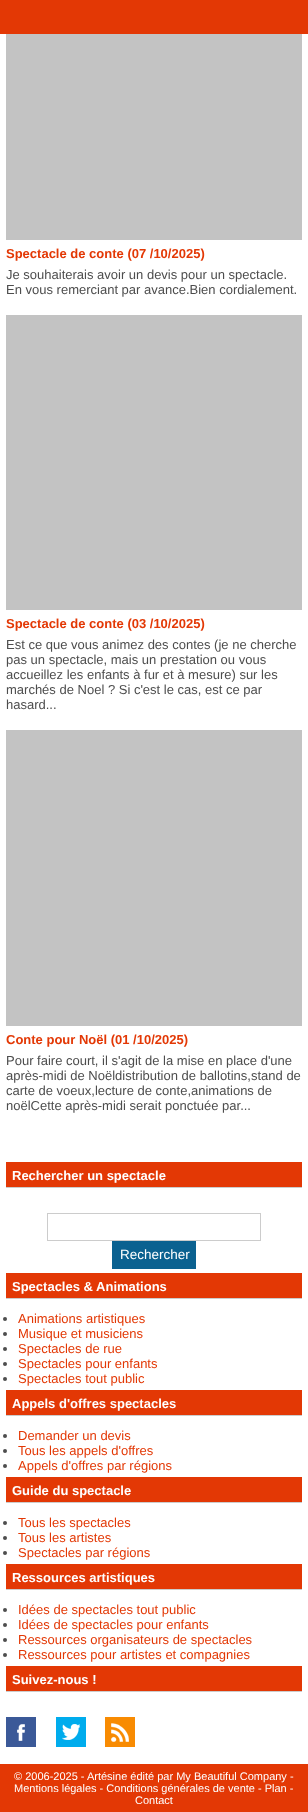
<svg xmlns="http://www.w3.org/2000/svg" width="308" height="1812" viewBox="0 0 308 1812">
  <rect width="100%" height="100%" fill="rgb(255,255,255)"/>
  <rect x="0" y="0" width="308" height="34" fill="rgb(227,56,5)"/>
  <rect x="6" y="34" width="296" height="206" fill="rgb(195,195,195)"/>
  <text x="6" y="258" font-family="Liberation Sans" font-size="13" font-weight="bold" fill="rgb(227,56,5)">Spectacle de conte (07 /10/2025)</text>
  <g font-family="Liberation Sans" font-size="13" fill="rgb(77,77,77)">
    <text>
      <tspan x="6" y="279">Je souhaiterais avoir un devis pour un spectacle.</tspan>
      <tspan x="6" y="294">En vous remerciant par avance.Bien cordialement.</tspan>
    </text>
  </g>
  <rect x="6" y="315" width="296" height="295" fill="rgb(195,195,195)"/>
  <text x="6" y="628" font-family="Liberation Sans" font-size="13" font-weight="bold" fill="rgb(227,56,5)">Spectacle de conte (03 /10/2025)</text>
  <g font-family="Liberation Sans" font-size="13" fill="rgb(77,77,77)">
    <text>
      <tspan x="6" y="649">Est ce que vous animez des contes (je ne cherche</tspan>
      <tspan x="6" y="664">pas un spectacle, mais un prestation ou vous</tspan>
      <tspan x="6" y="679">accueillez les enfants à fur et à mesure) sur les</tspan>
      <tspan x="6" y="694">marchés de Noel ? Si c'est le cas, est ce par</tspan>
      <tspan x="6" y="709">hasard...</tspan>
    </text>
  </g>
  <rect x="6" y="730" width="296" height="296" fill="rgb(195,195,195)"/>
  <text x="6" y="1044" font-family="Liberation Sans" font-size="13" font-weight="bold" fill="rgb(227,56,5)">Conte pour Noël (01 /10/2025)</text>
  <g font-family="Liberation Sans" font-size="13" fill="rgb(77,77,77)">
    <text>
      <tspan x="6" y="1065">Pour faire court, il s'agit de la mise en place d'une</tspan>
      <tspan x="6" y="1080">après-midi de Noëldistribution de ballotins,stand de</tspan>
      <tspan x="6" y="1095">carte de voeux,lecture de conte,animations de</tspan>
      <tspan x="6" y="1110">noëlCette après-midi serait ponctuée par...</tspan>
    </text>
  </g>
  <rect x="6" y="1162" width="296" height="25" fill="rgb(227,56,5)"/>
  <rect x="6" y="1187" width="296" height="1" fill="rgb(204,204,204)"/>
  <text x="12" y="1180" font-family="Liberation Sans" font-size="13" font-weight="bold" fill="rgb(255,255,255)">Rechercher un spectacle</text>
  <rect x="47.5" y="1213.5" width="213" height="27" fill="none" stroke="rgb(204,204,204)"/>
  <rect x="112" y="1241" width="84" height="28" fill="rgb(11,97,144)"/>
  <text x="120" y="1259" font-family="Liberation Sans" font-size="13.5" fill="rgb(255,255,255)">Rechercher</text>
  <rect x="6" y="1273" width="296" height="25" fill="rgb(227,56,5)"/>
  <rect x="6" y="1298" width="296" height="1" fill="rgb(204,204,204)"/>
  <text x="12" y="1291" font-family="Liberation Sans" font-size="13" font-weight="bold" fill="rgb(255,255,255)">Spectacles &amp; Animations</text>
  <circle cx="5" cy="1319" r="2" fill="rgb(77,77,77)"/>
  <text x="18" y="1323" font-family="Liberation Sans" font-size="13" fill="rgb(227,56,5)">Animations artistiques</text>
  <circle cx="5" cy="1334" r="2" fill="rgb(77,77,77)"/>
  <text x="18" y="1338" font-family="Liberation Sans" font-size="13" fill="rgb(227,56,5)">Musique et musiciens</text>
  <circle cx="5" cy="1349" r="2" fill="rgb(77,77,77)"/>
  <text x="18" y="1353" font-family="Liberation Sans" font-size="13" fill="rgb(227,56,5)">Spectacles de rue</text>
  <circle cx="5" cy="1364" r="2" fill="rgb(77,77,77)"/>
  <text x="18" y="1368" font-family="Liberation Sans" font-size="13" fill="rgb(227,56,5)">Spectacles pour enfants</text>
  <circle cx="5" cy="1379" r="2" fill="rgb(77,77,77)"/>
  <text x="18" y="1383" font-family="Liberation Sans" font-size="13" fill="rgb(227,56,5)">Spectacles tout public</text>
  <rect x="6" y="1390" width="296" height="25" fill="rgb(227,56,5)"/>
  <rect x="6" y="1415" width="296" height="1" fill="rgb(204,204,204)"/>
  <text x="12" y="1408" font-family="Liberation Sans" font-size="13" font-weight="bold" fill="rgb(255,255,255)">Appels d'offres spectacles</text>
  <circle cx="5" cy="1436" r="2" fill="rgb(77,77,77)"/>
  <text x="18" y="1440" font-family="Liberation Sans" font-size="13" fill="rgb(227,56,5)">Demander un devis</text>
  <circle cx="5" cy="1451" r="2" fill="rgb(77,77,77)"/>
  <text x="18" y="1455" font-family="Liberation Sans" font-size="13" fill="rgb(227,56,5)">Tous les appels d'offres</text>
  <circle cx="5" cy="1466" r="2" fill="rgb(77,77,77)"/>
  <text x="18" y="1470" font-family="Liberation Sans" font-size="13" fill="rgb(227,56,5)">Appels d'offres par régions</text>
  <rect x="6" y="1477" width="296" height="25" fill="rgb(227,56,5)"/>
  <rect x="6" y="1502" width="296" height="1" fill="rgb(204,204,204)"/>
  <text x="12" y="1495" font-family="Liberation Sans" font-size="13" font-weight="bold" fill="rgb(255,255,255)">Guide du spectacle</text>
  <circle cx="5" cy="1523" r="2" fill="rgb(77,77,77)"/>
  <text x="18" y="1527" font-family="Liberation Sans" font-size="13" fill="rgb(227,56,5)">Tous les spectacles</text>
  <circle cx="5" cy="1538" r="2" fill="rgb(77,77,77)"/>
  <text x="18" y="1542" font-family="Liberation Sans" font-size="13" fill="rgb(227,56,5)">Tous les artistes</text>
  <circle cx="5" cy="1553" r="2" fill="rgb(77,77,77)"/>
  <text x="18" y="1557" font-family="Liberation Sans" font-size="13" fill="rgb(227,56,5)">Spectacles par régions</text>
  <rect x="6" y="1564" width="296" height="25" fill="rgb(227,56,5)"/>
  <rect x="6" y="1589" width="296" height="1" fill="rgb(204,204,204)"/>
  <text x="12" y="1582" font-family="Liberation Sans" font-size="13" font-weight="bold" fill="rgb(255,255,255)">Ressources artistiques</text>
  <circle cx="5" cy="1610" r="2" fill="rgb(77,77,77)"/>
  <text x="18" y="1614" font-family="Liberation Sans" font-size="13" fill="rgb(227,56,5)">Idées de spectacles tout public</text>
  <circle cx="5" cy="1625" r="2" fill="rgb(77,77,77)"/>
  <text x="18" y="1629" font-family="Liberation Sans" font-size="13" fill="rgb(227,56,5)">Idées de spectacles pour enfants</text>
  <circle cx="5" cy="1640" r="2" fill="rgb(77,77,77)"/>
  <text x="18" y="1644" font-family="Liberation Sans" font-size="13" fill="rgb(227,56,5)">Ressources organisateurs de spectacles</text>
  <circle cx="5" cy="1655" r="2" fill="rgb(77,77,77)"/>
  <text x="18" y="1659" font-family="Liberation Sans" font-size="13" fill="rgb(227,56,5)">Ressources pour artistes et compagnies</text>
  <rect x="6" y="1666" width="296" height="25" fill="rgb(227,56,5)"/>
  <rect x="6" y="1691" width="296" height="1" fill="rgb(204,204,204)"/>
  <text x="12" y="1684" font-family="Liberation Sans" font-size="13" font-weight="bold" fill="rgb(255,255,255)">Suivez-nous !</text>
  <image x="6" y="1717" width="30" height="30" href="pic1.png"/>
  <image x="56" y="1717" width="30" height="30" href="pic2.png"/>
  <image x="105" y="1717" width="30" height="30" href="pic3.png"/>
  <rect x="0" y="1764" width="308" height="48" fill="rgb(227,56,5)"/>
  <g font-family="Liberation Sans" font-size="11" fill="rgb(255,255,255)">
    <text>
      <tspan x="14" y="1780">© 2006-2025 - Artésine édité par My Beautiful Company -</tspan>
      <tspan x="14" y="1792">Mentions légales - Conditions générales de vente - Plan -</tspan>
    </text>
    <text x="135" y="1804">Contact</text>
  </g>
</svg>
